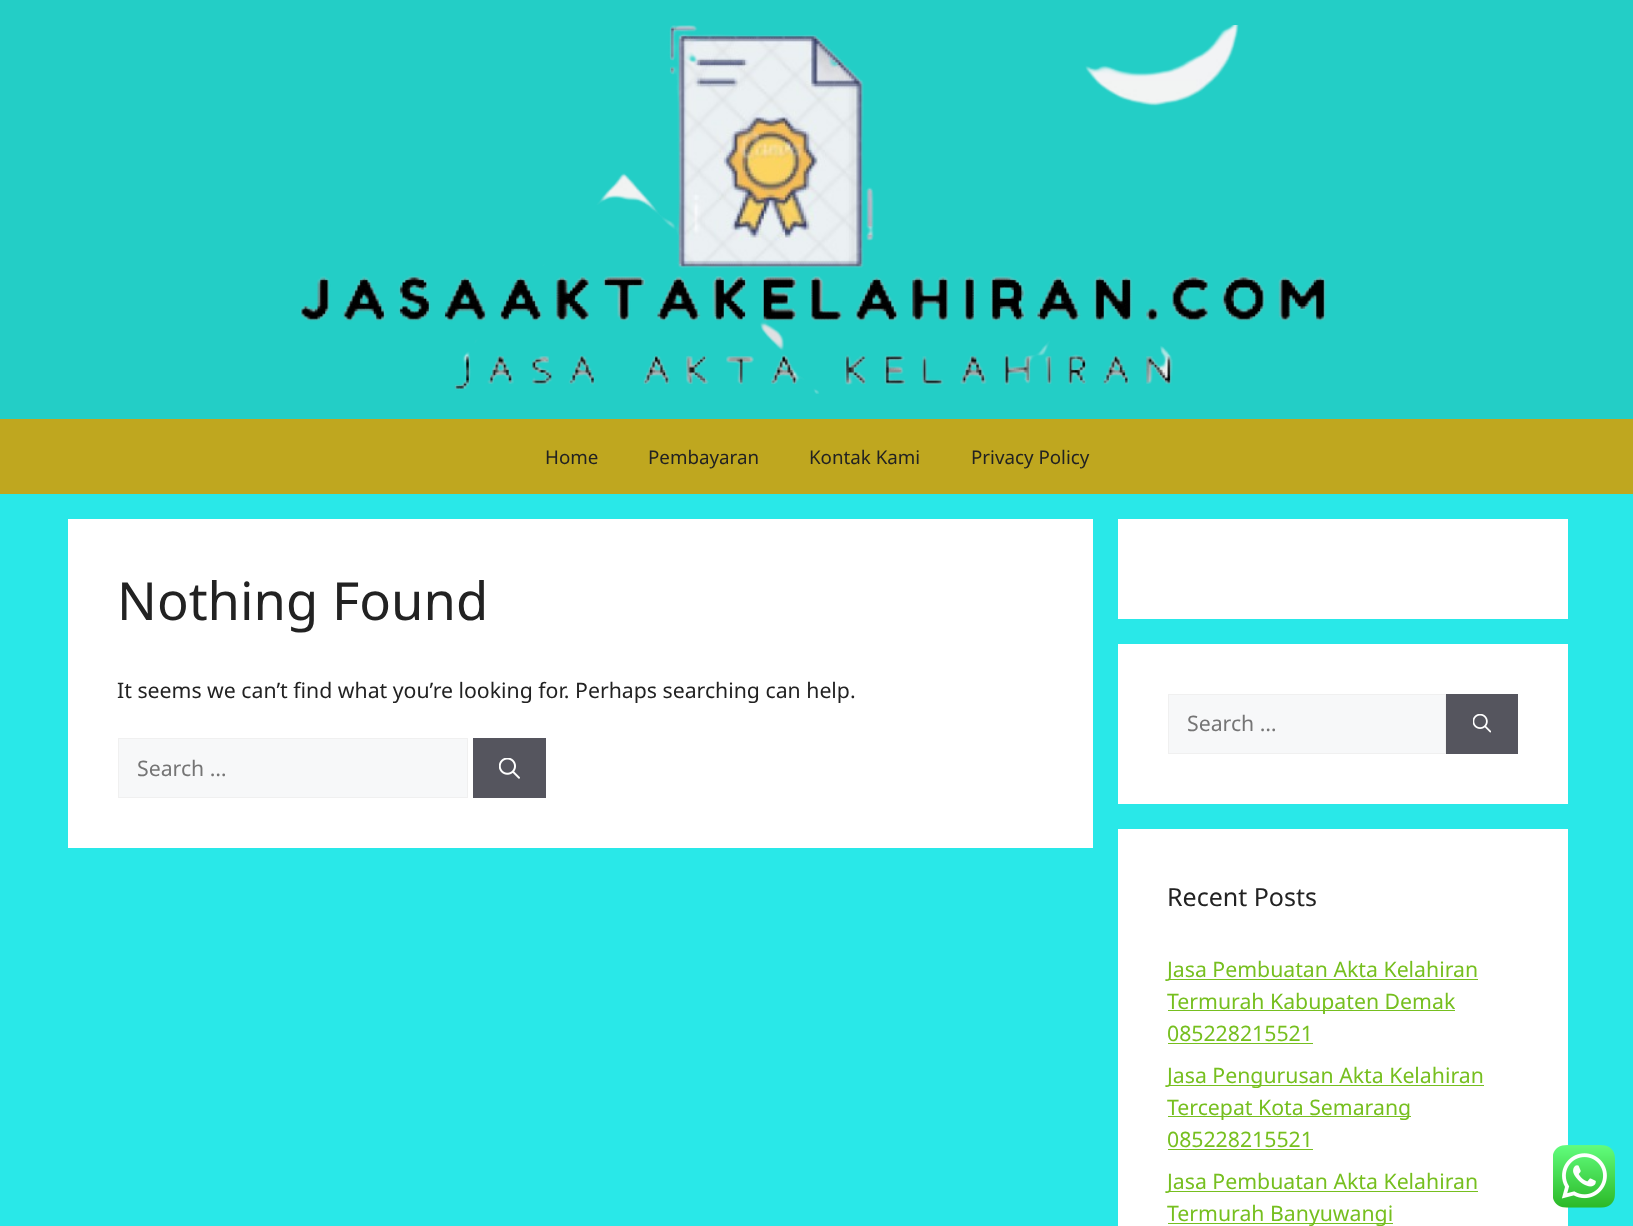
<svg xmlns="http://www.w3.org/2000/svg" width="1633" height="1226" viewBox="0 0 1633 1226">
  <rect width="100%" height="100%" fill="rgb(41,232,232)"/>
  <rect x="0" y="0" width="1633" height="419" fill="rgb(35,206,198)"/>
  <image x="300" y="25" width="1026" height="369" href="pic1.png"/>
  <rect x="0" y="419" width="1633" height="75" fill="rgb(191,167,31)"/>
  <g font-family="Noto Sans" font-size="18.75" fill="rgb(34,34,34)">
    <text x="545" y="464">Home</text>
    <text x="648" y="464">Pembayaran</text>
    <text x="809" y="464">Kontak Kami</text>
    <text x="971" y="464">Privacy Policy</text>
  </g>
  <rect x="68" y="519" width="1025" height="329" fill="rgb(255,255,255)"/>
  <text x="117" y="620" font-family="Noto Sans" font-size="52.5" fill="rgb(34,34,34)">Nothing Found</text>
  <text x="117" y="698" font-family="Noto Sans" font-size="21.25" fill="rgb(34,34,34)">It seems we can’t find what you’re looking for. Perhaps searching can help.</text>
  <rect x="118.5" y="738.5" width="349" height="59" fill="rgb(247,248,249)" stroke="rgb(240,240,240)"/>
  <text x="137" y="776" font-family="Noto Sans" font-size="21.25" fill="rgb(117,117,117)">Search …</text>
  <rect x="473" y="738" width="73" height="60" fill="rgb(85,85,94)"/>
  <image x="499" y="758" width="21" height="21" href="pic2.png"/>
  <rect x="1118" y="519" width="450" height="100" fill="rgb(255,255,255)"/>
  <rect x="1118" y="644" width="450" height="160" fill="rgb(255,255,255)"/>
  <rect x="1168.5" y="694.5" width="277" height="59" fill="rgb(247,248,249)" stroke="rgb(240,240,240)"/>
  <text x="1187" y="731" font-family="Noto Sans" font-size="21.25" fill="rgb(117,117,117)">Search …</text>
  <rect x="1446" y="694" width="72" height="60" fill="rgb(85,85,94)"/>
  <image x="1473" y="714" width="18" height="19" href="pic3.png"/>
  <rect x="1118" y="829" width="450" height="397" fill="rgb(255,255,255)"/>
  <text x="1167" y="906" font-family="Noto Sans" font-size="25" fill="rgb(34,34,34)">Recent Posts</text>
  <rect x="1168" y="979" width="310" height="1" fill="rgb(118,191,31)"/>
  <text x="1167" y="977" font-family="Noto Sans" font-size="21.25" fill="rgb(118,191,31)">Jasa Pembuatan Akta Kelahiran</text>
  <rect x="1168" y="1010" width="287" height="1" fill="rgb(118,191,31)"/>
  <g font-family="Noto Sans" font-size="21.25" fill="rgb(118,191,31)">
    <text>
      <tspan x="1167" y="1009">Termurah Kabupaten Demak</tspan>
      <tspan x="1167" y="1041">085228215521</tspan>
    </text>
  </g>
  <rect x="1168" y="1043" width="145" height="1" fill="rgb(118,191,31)"/>
  <rect x="1168" y="1085" width="316" height="1" fill="rgb(118,191,31)"/>
  <text x="1167" y="1083" font-family="Noto Sans" font-size="21.25" fill="rgb(118,191,31)">Jasa Pengurusan Akta Kelahiran</text>
  <rect x="1168" y="1116" width="243" height="1" fill="rgb(118,191,31)"/>
  <g font-family="Noto Sans" font-size="21.25" fill="rgb(118,191,31)">
    <text>
      <tspan x="1167" y="1115">Tercepat Kota Semarang</tspan>
      <tspan x="1167" y="1147">085228215521</tspan>
    </text>
  </g>
  <rect x="1168" y="1149" width="145" height="1" fill="rgb(118,191,31)"/>
  <rect x="1168" y="1191" width="310" height="1" fill="rgb(118,191,31)"/>
  <text x="1167" y="1189" font-family="Noto Sans" font-size="21.25" fill="rgb(118,191,31)">Jasa Pembuatan Akta Kelahiran</text>
  <rect x="1168" y="1223" width="225" height="1" fill="rgb(118,191,31)"/>
  <text x="1167" y="1221" font-family="Noto Sans" font-size="21.25" fill="rgb(118,191,31)">Termurah Banyuwangi</text>
  <image x="1553" y="1145" width="62" height="63" href="pic4.png"/>
</svg>
